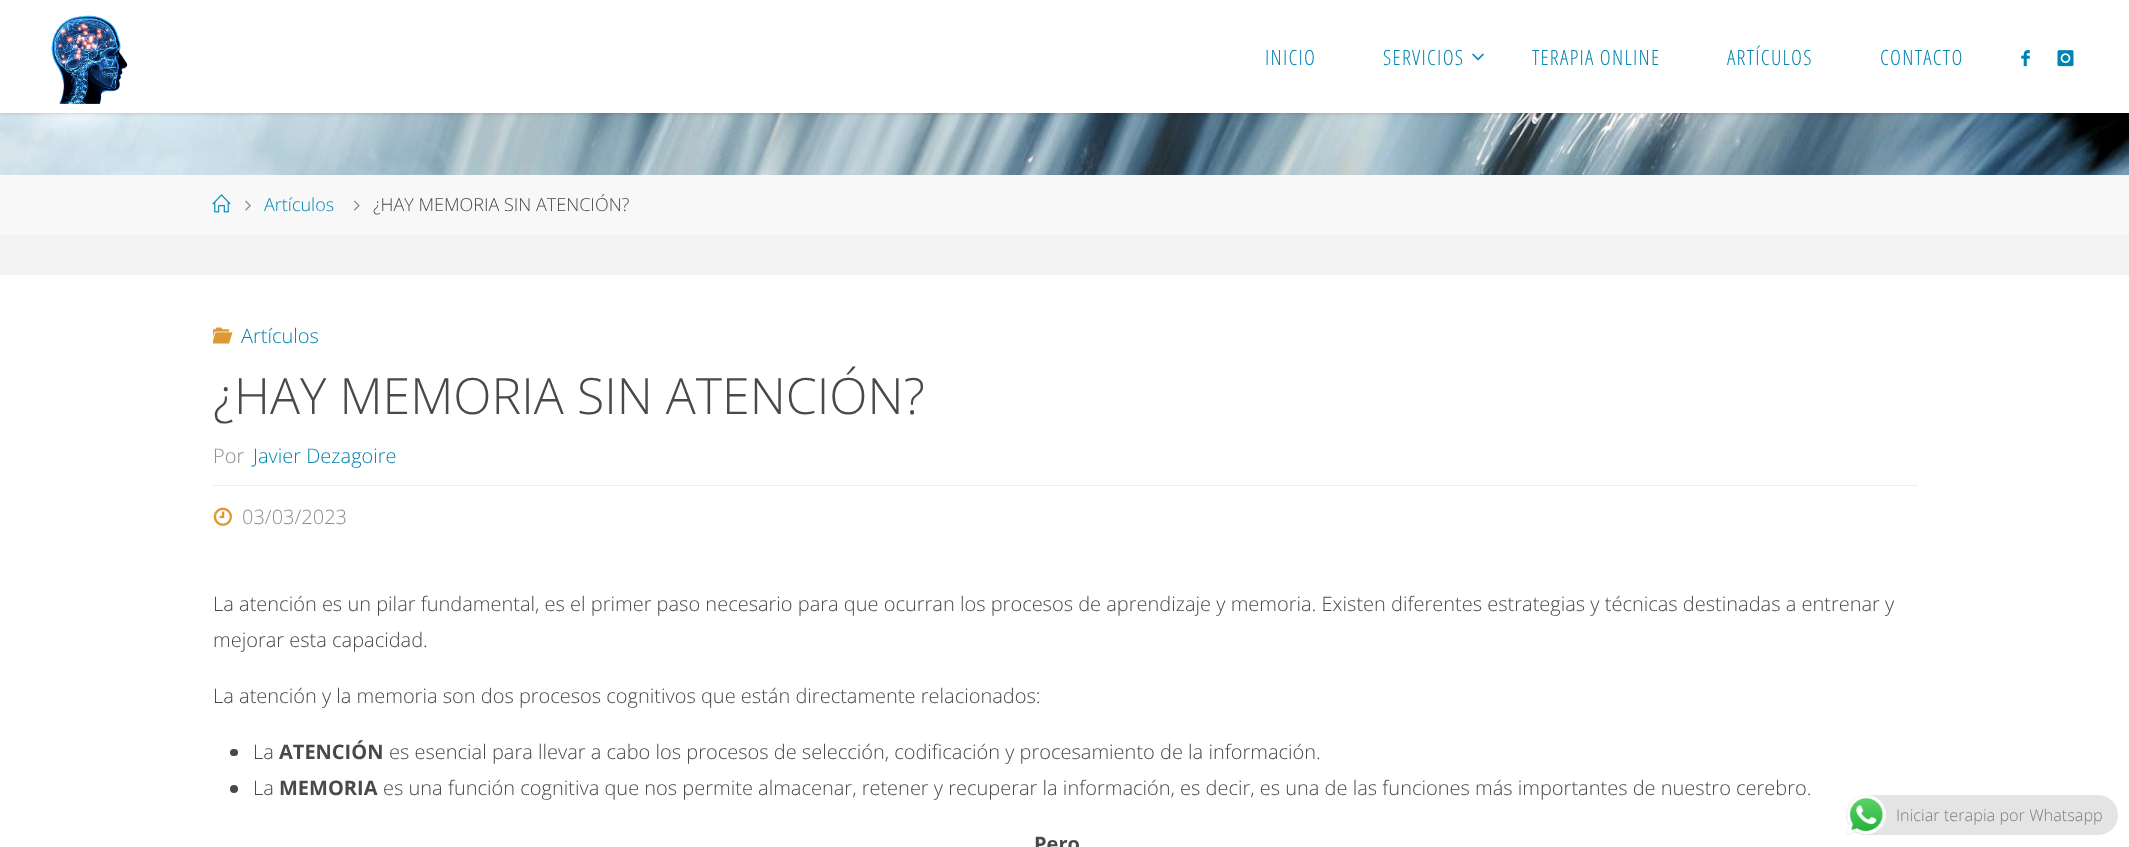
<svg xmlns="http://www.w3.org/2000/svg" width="2129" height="847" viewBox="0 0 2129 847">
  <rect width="100%" height="100%" fill="rgb(243,243,243)"/>
  <image x="0" y="113" width="2129" height="62" href="pic5.png"/>
  <rect x="0" y="0" width="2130" height="113" fill="rgba(0,0,0,0.2)" filter="blur(2px)"/>
  <rect x="0" y="0" width="2129" height="113" fill="rgb(255,255,255)"/>
  <image x="51" y="15" width="77" height="89" href="pic1.png"/>
  <g font-family="Open Sans Condensed" font-size="21" font-weight="300" letter-spacing="1.25" fill="rgb(0,133,178)">
    <text x="1265" y="65">INICIO</text>
    <text x="1383" y="65">SERVICIOS</text>
  </g>
  <image x="1472" y="53" width="12" height="8" href="pic2.png"/>
  <g font-family="Open Sans Condensed" font-size="21" font-weight="300" letter-spacing="1.25" fill="rgb(0,133,178)">
    <text x="1532" y="65">TERAPIA ONLINE</text>
    <text x="1727" y="65">ARTÍCULOS</text>
    <text x="1880" y="65">CONTACTO</text>
  </g>
  <image x="2021" y="50" width="9" height="17" href="pic3.png"/>
  <image x="2057" y="50" width="17" height="17" href="pic4.png"/>
  <rect x="0" y="175" width="2129" height="60" fill="rgb(248,248,248)"/>
  <image x="212" y="194" width="19" height="19" href="pic6.png"/>
  <image x="245" y="200" width="6" height="11" href="pic7.png"/>
  <text x="264" y="211" font-family="Open Sans" font-size="18" font-weight="300" fill="rgb(0,133,178)">Artículos</text>
  <image x="354" y="200" width="6" height="11" href="pic8.png"/>
  <text x="373" y="211" font-family="Open Sans" font-size="18" font-weight="300" fill="rgb(73,73,73)">¿HAY MEMORIA SIN ATENCIÓN?</text>
  <rect x="0" y="275" width="2129" height="572" fill="rgb(255,255,255)"/>
  <image x="213" y="327" width="20" height="17" href="pic9.png"/>
  <text x="241" y="343" font-family="Open Sans" font-size="20" font-weight="300" fill="rgb(0,133,178)">Artículos</text>
  <text x="213" y="414" font-family="Open Sans" font-size="50" font-weight="300" fill="rgb(73,73,73)">¿HAY MEMORIA SIN ATENCIÓN?</text>
  <rect x="213" y="485" width="1705" height="1" fill="rgb(238,238,238)"/>
  <text x="213" y="463" font-family="Open Sans" font-size="20" font-weight="300" fill="rgb(142,142,142)">Por</text>
  <text x="253" y="463" font-family="Open Sans" font-size="20" font-weight="300" fill="rgb(0,133,178)">Javier Dezagoire</text>
  <image x="213" y="507" width="19" height="19" href="pic10.png"/>
  <text x="242" y="524" font-family="Open Sans" font-size="20" font-weight="300" fill="rgb(142,142,142)">03/03/2023</text>
  <g font-family="Open Sans" font-size="20" font-weight="300" fill="rgb(73,73,73)">
    <text>
      <tspan x="213" y="611">La atención es un pilar fundamental, es el primer paso necesario para que ocurran los procesos de aprendizaje y memoria. Existen diferentes estrategias y técnicas destinadas a entrenar y</tspan>
      <tspan x="213" y="647">mejorar esta capacidad.</tspan>
    </text>
    <text x="213" y="703">La atención y la memoria son dos procesos cognitivos que están directamente relacionados:</text>
  </g>
  <rect x="230" y="749" width="8" height="7" rx="3.5" fill="rgb(73,73,73)"/>
  <text x="253" y="759" font-family="Open Sans" font-size="20" font-weight="300" fill="rgb(73,73,73)">La</text>
  <text x="279" y="759" font-family="Open Sans" font-size="20" font-weight="bold" fill="rgb(73,73,73)">ATENCIÓN</text>
  <text x="389" y="759" font-family="Open Sans" font-size="20" font-weight="300" fill="rgb(73,73,73)">es esencial para llevar a cabo los procesos de selección, codificación y procesamiento de la información.</text>
  <circle cx="234" cy="789" r="4" fill="rgb(73,73,73)"/>
  <text x="253" y="795" font-family="Open Sans" font-size="20" font-weight="300" fill="rgb(73,73,73)">La</text>
  <text x="279" y="795" font-family="Open Sans" font-size="20" font-weight="bold" fill="rgb(73,73,73)">MEMORIA</text>
  <text x="383" y="795" font-family="Open Sans" font-size="20" font-weight="300" fill="rgb(73,73,73)">es una función cognitiva que nos permite almacenar, retener y recuperar la información, es decir, es una de las funciones más importantes de nuestro cerebro.</text>
  <text x="1034" y="851" font-family="Open Sans" font-size="20" font-weight="bold" fill="rgb(73,73,73)">Pero</text>
  <rect x="1846" y="795" width="272" height="40" rx="20" fill="rgb(228,228,228)"/>
  <image x="1846" y="795" width="41" height="40" href="pic11.png"/>
  <text x="1896" y="821" font-family="Open Sans" font-size="16.25" font-weight="300" fill="rgb(127,125,125)">Iniciar terapia por Whatsapp</text>
</svg>
